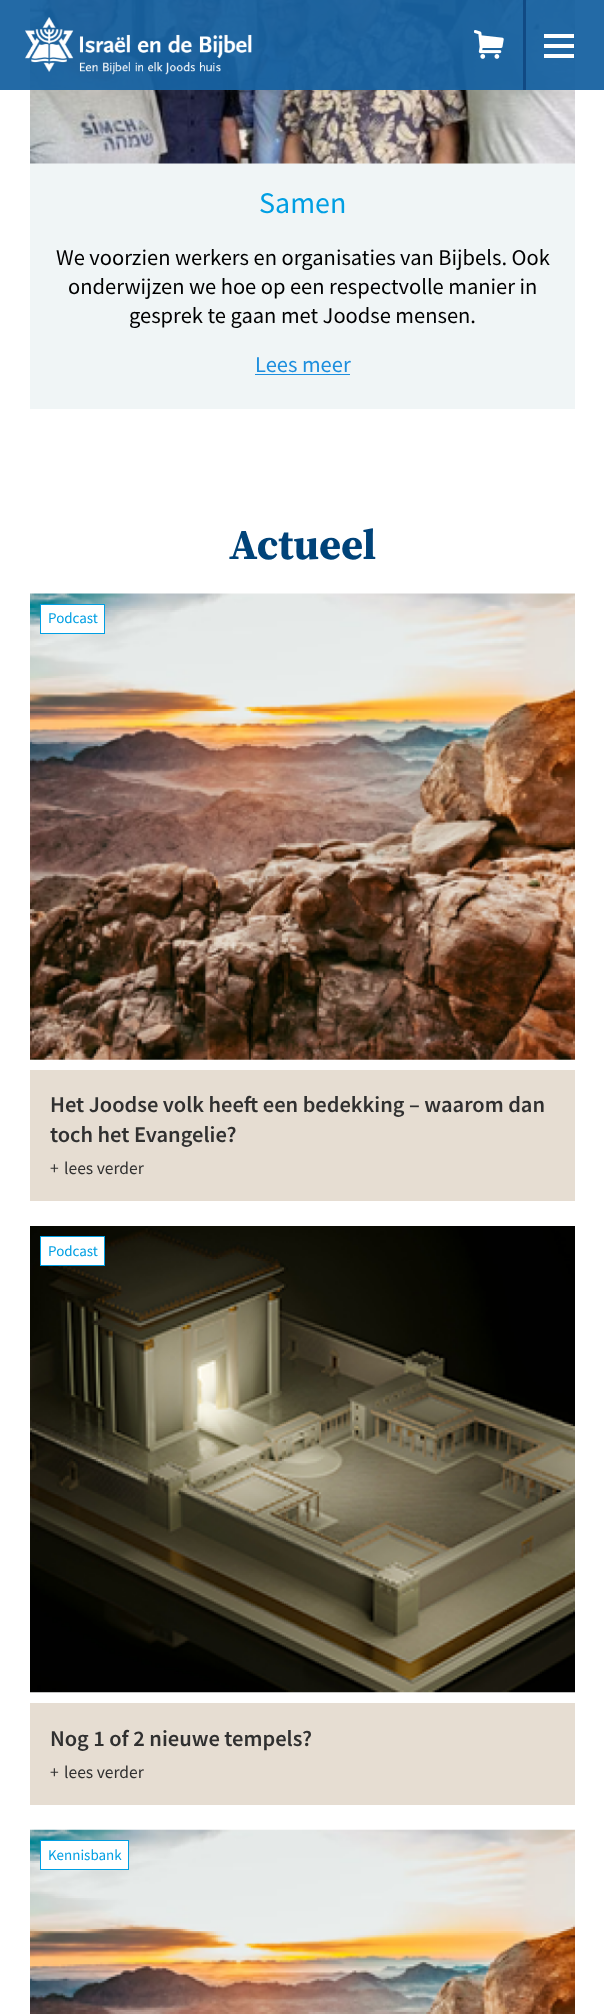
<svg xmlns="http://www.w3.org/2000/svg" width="604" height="2014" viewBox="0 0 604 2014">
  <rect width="100%" height="100%" fill="rgb(255,255,255)"/>
  <rect x="30" y="163" width="545" height="246" fill="rgb(240,245,246)"/>
  <image x="30" y="0" width="545" height="164" href="pic3.png"/>
  <rect x="0" y="0" width="604" height="90" fill="rgba(23,98,161,0.95)"/>
  <image x="25" y="17" width="227" height="58" href="pic1.png"/>
  <rect x="523" y="0" width="3" height="90" fill="rgb(17,74,132)"/>
  <image x="474" y="30" width="30" height="29" href="pic2.png"/>
  <rect x="544" y="34" width="30" height="4" fill="rgb(255,255,255)"/>
  <rect x="544" y="44" width="30" height="4" fill="rgb(255,255,255)"/>
  <rect x="544" y="54" width="30" height="4" fill="rgb(255,255,255)"/>
  <text x="259" y="213" font-family="Source Sans Pro" font-size="30" fill="rgb(0,159,227)">Samen</text>
  <g font-family="Source Sans Pro" font-size="22.5" fill="rgb(0,0,0)">
    <text x="56" y="265">We voorzien werkers en organisaties van Bijbels. Ook</text>
    <text x="68" y="294">onderwijzen we hoe op een respectvolle manier in</text>
    <text x="129" y="323">gesprek te gaan met Joodse mensen.</text>
  </g>
  <text x="255" y="372" font-family="Source Sans Pro" font-size="22.5" fill="rgb(28,142,222)">Lees meer</text>
  <rect x="255" y="374" width="95" height="1" fill="rgb(28,142,222)"/>
  <text x="229" y="559" font-family="Source Serif Pro" font-size="42.5" font-weight="bold" fill="rgb(0,67,121)">Actueel</text>
  <image x="30" y="593" width="545" height="467" href="pic4.png"/>
  <rect x="40.5" y="604.5" width="64" height="29" fill="rgb(255,255,255)" stroke="rgb(0,159,227)"/>
  <text x="48" y="623" font-family="Source Sans Pro" font-size="15" fill="rgb(0,159,227)">Podcast</text>
  <rect x="30" y="1070" width="545" height="131" fill="rgb(230,221,210)"/>
  <g font-family="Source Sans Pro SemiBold" font-size="22.5" font-weight="600" fill="rgb(48,48,48)">
    <text>
      <tspan x="50" y="1112">Het Joodse volk heeft een bedekking – waarom dan</tspan>
      <tspan x="50" y="1142">toch het Evangelie?</tspan>
    </text>
  </g>
  <g font-family="Source Sans Pro" font-size="17.5" fill="rgb(48,48,48)">
    <text x="50" y="1174">+</text>
    <text x="64" y="1174">lees verder</text>
  </g>
  <image x="30" y="1226" width="545" height="467" href="pic5.png"/>
  <rect x="40.5" y="1236.5" width="64" height="29" fill="rgb(255,255,255)" stroke="rgb(0,159,227)"/>
  <text x="48" y="1256" font-family="Source Sans Pro" font-size="15" fill="rgb(0,159,227)">Podcast</text>
  <rect x="30" y="1703" width="545" height="102" fill="rgb(230,221,210)"/>
  <text x="50" y="1746" font-family="Source Sans Pro SemiBold" font-size="22.5" font-weight="600" fill="rgb(48,48,48)">Nog 1 of 2 nieuwe tempels?</text>
  <g font-family="Source Sans Pro" font-size="17.5" fill="rgb(48,48,48)">
    <text x="50" y="1778">+</text>
    <text x="64" y="1778">lees verder</text>
  </g>
  <image x="30" y="1829" width="545" height="185" href="pic6.png"/>
  <rect x="40.5" y="1840.5" width="88" height="29" fill="rgb(255,255,255)" stroke="rgb(0,159,227)"/>
  <text x="48" y="1860" font-family="Source Sans Pro" font-size="15" fill="rgb(0,159,227)">Kennisbank</text>
</svg>
